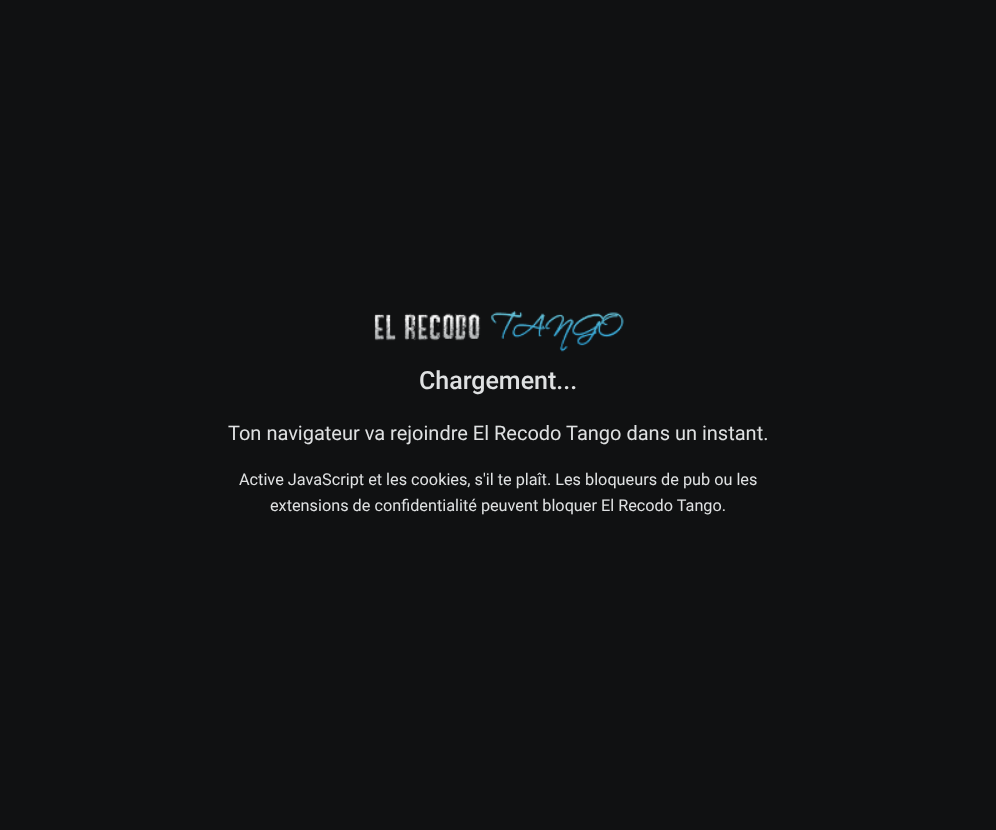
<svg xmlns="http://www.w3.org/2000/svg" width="996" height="830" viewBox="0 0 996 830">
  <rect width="100%" height="100%" fill="rgb(16,17,18)"/>
  <image x="374" y="311" width="250" height="41" href="pic1.png"/>
  <text x="419" y="389" font-family="Roboto" font-size="25" font-weight="500" fill="rgb(223,225,226)">Chargement...</text>
  <text x="228" y="440" font-family="Roboto" font-size="20" fill="rgb(223,225,226)">Ton navigateur va rejoindre El Recodo Tango dans un instant.</text>
  <g font-family="Roboto" font-size="16.25" fill="rgb(223,225,226)">
    <text x="239" y="485">Active JavaScript et les cookies, s'il te plaît. Les bloqueurs de pub ou les</text>
    <text x="270" y="511">extensions de confidentialité peuvent bloquer El Recodo Tango.</text>
  </g>
</svg>
